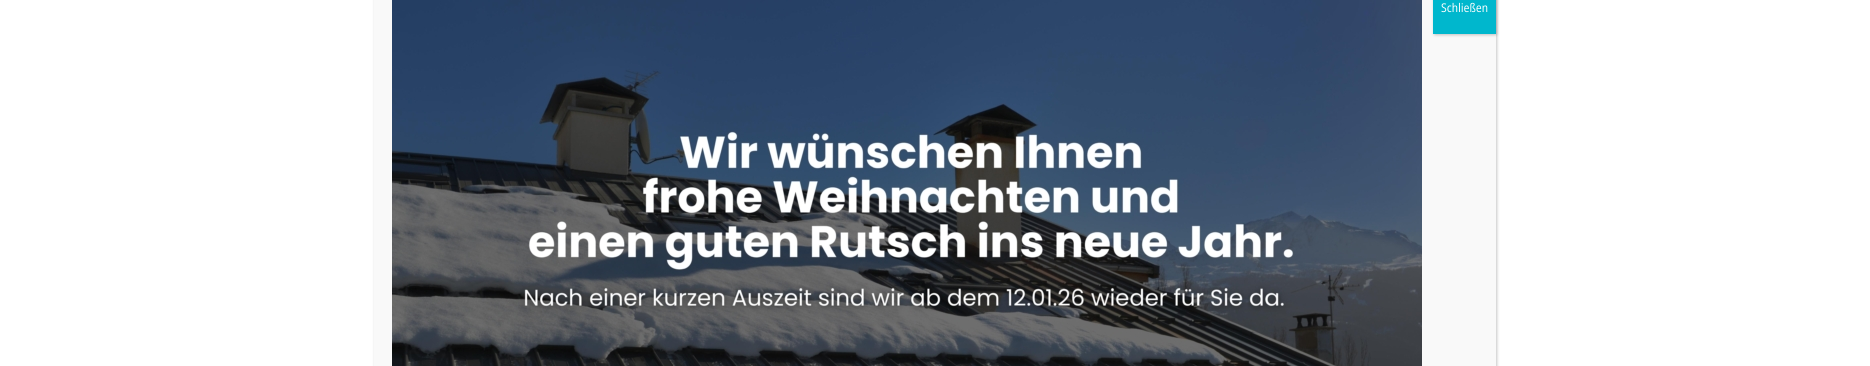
<svg xmlns="http://www.w3.org/2000/svg" width="1870" height="366" viewBox="0 0 1870 366">
  <rect width="100%" height="100%" fill="rgb(255,255,255)"/>
  <rect x="375" y="-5" width="1122" height="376" fill="rgba(2,2,2,0.23)" filter="blur(1.5px)"/>
  <rect x="374" y="0" width="1122" height="366" fill="rgb(249,249,249)"/>
  <image x="392" y="0" width="1030" height="366" href="pic1.png"/>
  <rect x="1434" y="-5" width="63" height="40" fill="rgba(2,2,2,0.23)" filter="blur(1.5px)"/>
  <rect x="1433" y="0" width="63" height="34" fill="rgb(0,183,205)"/>
  <image x="1441" y="2" width="47" height="11" href="pic2.png"/>
</svg>
